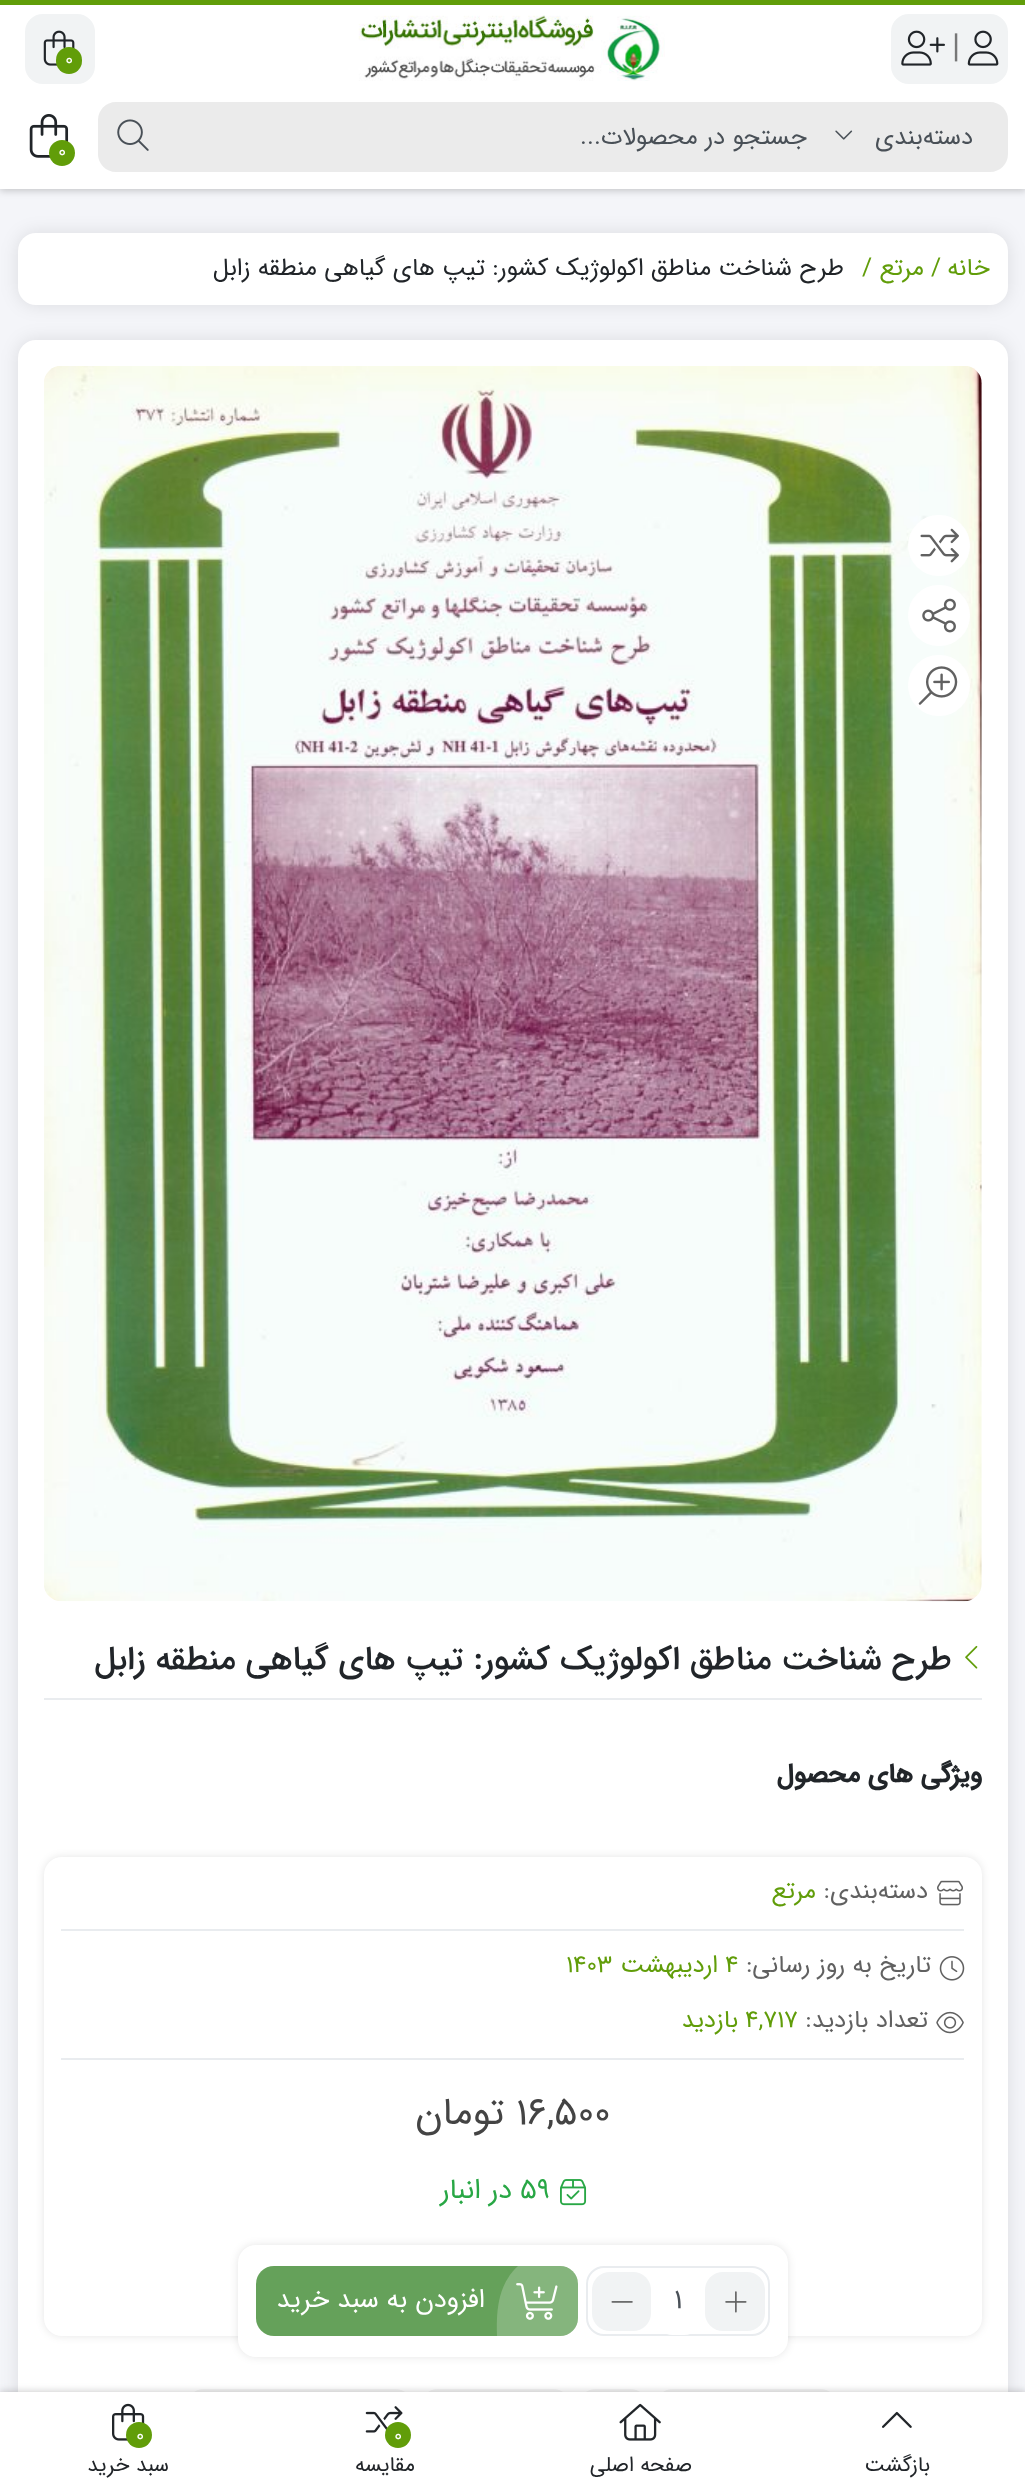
<svg xmlns="http://www.w3.org/2000/svg" width="1025" height="2488" viewBox="0 0 1025 2488">
  <rect width="100%" height="100%" fill="rgb(244,245,249)"/>
  <rect x="0" y="2" width="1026" height="189" fill="rgba(0,0,0,0.19)" filter="blur(3.5px)"/>
  <rect x="0" y="5" width="1025" height="184" fill="rgb(255,255,255)"/>
  <rect x="0" y="0" width="1025" height="5" fill="rgb(97,157,9)"/>
  <rect x="892" y="15" width="115" height="68" rx="17" fill="rgb(241,243,244)" stroke="rgb(241,243,244)" stroke-width="2"/>
  <image x="967" y="30" width="32" height="36" href="pic1.png"/>
  <text x="952" y="57" font-family="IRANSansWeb" font-size="33.25" fill="rgb(119,119,119)">|</text>
  <image x="901" y="30" width="44" height="36" href="pic2.png"/>
  <image x="358" y="15" width="307" height="66" href="pic3.png"/>
  <rect x="26" y="15" width="68" height="68" rx="17" fill="rgb(241,243,244)" stroke="rgb(241,243,244)" stroke-width="2"/>
  <image x="43" y="30" width="32" height="36" href="pic4.png"/>
  <rect x="56" y="47" width="26" height="27" rx="13" fill="rgb(97,157,9)"/>
  <text x="65" y="65" font-family="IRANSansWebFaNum" font-size="19" fill="rgb(255,255,255)">0</text>
  <path d="M833 102H990C1000 102 1008 110 1008 120V154C1008 164 1000 172 990 172H833Z" fill="rgb(235,235,235)"/>
  <text x="973" y="144" font-family="IRANSansWeb" font-size="24.5" direction="rtl" fill="rgb(73,80,87)">دسته‌بندی</text>
  <image x="835" y="130" width="18" height="10" href="pic5.png"/>
  <rect x="168" y="102" width="665" height="70" fill="rgb(235,235,235)"/>
  <text x="807" y="144" font-family="IRANSansWeb" font-size="24.5" direction="rtl" fill="rgb(73,80,87)">جستجو در محصولات...</text>
  <path d="M116 102H168V172H116C106 172 98 164 98 154V120C98 110 106 102 116 102Z" fill="rgb(235,235,235)"/>
  <image x="117" y="119" width="32" height="32" href="pic6.png"/>
  <image x="29" y="114" width="40" height="44" href="pic7.png"/>
  <circle cx="62" cy="153" r="13" fill="rgb(97,157,9)"/>
  <text x="58" y="157" font-family="IRANSansWebFaNum" font-size="19" fill="rgb(255,255,255)">0</text>
  <rect x="18" y="233" width="990" height="72" rx="18" fill="rgba(0,0,0,0.1)" filter="blur(9px)"/>
  <rect x="18" y="233" width="990" height="72" rx="18" fill="rgb(255,255,255)"/>
  <text x="990" y="275" font-family="IRANSansWeb" font-size="24.5" direction="rtl" fill="rgb(97,157,9)">خانه</text>
  <text x="931" y="275" font-family="IRANSansWeb" font-size="24.5" fill="rgb(97,157,9)">/</text>
  <text x="924" y="275" font-family="IRANSansWeb" font-size="24.5" direction="rtl" fill="rgb(97,157,9)">مرتع</text>
  <text x="862" y="275" font-family="IRANSansWeb" font-size="24.5" fill="rgb(97,157,9)">/</text>
  <text x="844" y="275" font-family="IRANSansWeb" font-size="24.5" direction="rtl" fill="rgb(33,37,41)">طرح شناخت مناطق اکولوژیک کشور: تیپ های گیاهی منطقه زابل</text>
  <rect x="18" y="340" width="990" height="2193" rx="18" fill="rgba(0,0,0,0.1)" filter="blur(9px)"/>
  <rect x="18" y="340" width="990" height="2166" rx="18" fill="rgb(255,255,255)"/>
  <image x="44" y="366" width="938" height="1236" href="pic8.png"/>
  <rect x="908" y="515" width="62" height="61" rx="30.5" fill="rgb(255,255,255)"/>
  <image x="920" y="528" width="39" height="35" href="pic9.png"/>
  <rect x="908" y="585" width="62" height="61" rx="30.5" fill="rgb(255,255,255)"/>
  <image x="922" y="598" width="34" height="35" href="pic10.png"/>
  <rect x="908" y="655" width="62" height="61" rx="30.5" fill="rgb(255,255,255)"/>
  <image x="918" y="666" width="40" height="39" href="pic11.png"/>
  <rect x="44" y="1698" width="938" height="2" fill="rgb(233,236,239)"/>
  <image x="965" y="1645" width="13" height="24" href="pic12.png"/>
  <text x="952" y="1669" font-family="IRANSansWeb" font-size="33.25" font-weight="500" direction="rtl" fill="rgb(33,37,41)">طرح شناخت مناطق اکولوژیک کشور: تیپ های گیاهی منطقه زابل</text>
  <text x="982" y="1782" font-family="IRANSansWeb" font-size="26.25" font-weight="bold" direction="rtl" fill="rgb(33,37,41)">ویژگی های محصول</text>
  <rect x="44" y="1857" width="938" height="479" rx="18" fill="rgba(0,0,0,0.1)" filter="blur(4.5px)"/>
  <rect x="44" y="1857" width="938" height="479" rx="18" fill="rgb(255,255,255)"/>
  <rect x="61" y="1929" width="903" height="2" fill="rgb(233,236,239)"/>
  <image x="937" y="1880" width="26" height="26" href="pic13.png"/>
  <text x="928" y="1898" font-family="IRANSansWeb" font-size="24.5" direction="rtl" fill="rgb(97,97,97)">دسته‌بندی:</text>
  <text x="816" y="1898" font-family="IRANSansWeb" font-size="24.5" direction="rtl" fill="rgb(97,157,9)">مرتع</text>
  <image x="939" y="1956" width="26" height="25" href="pic14.png"/>
  <text x="931" y="1972" font-family="IRANSansWeb" font-size="24.5" direction="rtl" fill="rgb(97,97,97)">تاریخ به روز رسانی:</text>
  <text x="725" y="1972" font-family="IRANSansWebFaNum" font-size="24.5" fill="rgb(97,157,9)">4</text>
  <text x="718" y="1972" font-family="IRANSansWebFaNum" font-size="24.5" direction="rtl" fill="rgb(97,157,9)">اردیبهشت</text>
  <text x="566" y="1972" font-family="IRANSansWebFaNum" font-size="24.5" fill="rgb(97,157,9)">1403</text>
  <rect x="61" y="2058" width="903" height="2" fill="rgb(233,236,239)"/>
  <image x="936" y="2011" width="28" height="23" href="pic15.png"/>
  <text x="928" y="2027" font-family="IRANSansWeb" font-size="24.5" direction="rtl" fill="rgb(97,97,97)">تعداد بازدید:</text>
  <text x="745" y="2027" font-family="IRANSansWebFaNum" font-size="24.5" fill="rgb(97,157,9)">4,717</text>
  <text x="738" y="2027" font-family="IRANSansWebFaNum" font-size="24.5" direction="rtl" fill="rgb(97,157,9)">بازدید</text>
  <text x="516" y="2124" font-family="IRANSansWebFaNum" font-size="38.5" fill="rgb(68,68,68)">16,500</text>
  <text x="504" y="2124" font-family="IRANSansWebFaNum" font-size="38.5" direction="rtl" fill="rgb(68,68,68)">تومان</text>
  <image x="560" y="2179" width="27" height="27" href="pic16.png"/>
  <text x="520" y="2198" font-family="IRANSansWebFaNum" font-size="28" fill="rgb(40,167,69)">59</text>
  <text x="512" y="2198" font-family="IRANSansWebFaNum" font-size="28" direction="rtl" fill="rgb(40,167,69)">در انبار</text>
  <rect x="655" y="2389" width="183" height="45" rx="18" fill="rgb(245,245,245)"/>
  <rect x="578" y="2389" width="70" height="45" rx="18" fill="rgb(245,245,245)"/>
  <rect x="420" y="2389" width="151" height="45" rx="18" fill="rgb(245,245,245)"/>
  <rect x="186" y="2389" width="227" height="45" rx="18" fill="rgb(245,245,245)"/>
  <rect x="238" y="2245" width="550" height="112" rx="18" fill="rgba(0,0,0,0.1)" filter="blur(4.5px)"/>
  <rect x="238" y="2245" width="550" height="112" rx="18" fill="rgb(255,255,255)"/>
  <rect x="587" y="2267" width="182" height="68" rx="17" fill="none" stroke="rgb(233,236,239)" stroke-width="2"/>
  <rect x="705" y="2272" width="60" height="59" rx="18" fill="rgb(241,243,244)"/>
  <image x="725" y="2291" width="22" height="22" href="pic17.png"/>
  <rect x="655" y="2268" width="47" height="67" rx="18" fill="rgb(255,255,255)"/>
  <text x="674" y="2308" font-family="IRANSansWebFaNum" font-size="28" fill="rgb(73,80,87)">1</text>
  <rect x="592" y="2272" width="59" height="59" rx="18" fill="rgb(241,243,244)"/>
  <image x="611" y="2301" width="22" height="2" href="pic18.png"/>
  <rect x="256" y="2266" width="322" height="70" rx="18" fill="rgb(101,161,90)"/>
  <image x="516" y="2283" width="42" height="37" href="pic19.png"/>
  <path d="M497 2336C496 2311 498 2284 518 2266H560C570 2266 578 2274 578 2284V2318C578 2328 570 2336 560 2336Z" fill="rgba(255,255,255,0.21)"/>
  <text x="485" y="2307" font-family="IRANSansWeb" font-size="26.25" direction="rtl" fill="rgb(255,255,255)">افزودن به سبد خرید</text>
  <rect x="0" y="2391" width="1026" height="96" fill="rgba(0,0,0,0.19)" filter="blur(3.5px)"/>
  <rect x="0" y="2392" width="1025" height="96" fill="rgb(255,255,255)"/>
  <image x="882" y="2411" width="30" height="17" href="pic20.png"/>
  <text x="930" y="2471" font-family="IRANSansWeb" font-size="21" direction="rtl" fill="rgb(33,37,41)">بازگشت</text>
  <image x="619" y="2403" width="42" height="38" href="pic21.png"/>
  <text x="692" y="2471" font-family="IRANSansWeb" font-size="21" direction="rtl" fill="rgb(33,37,41)">صفحه اصلی</text>
  <image x="365" y="2406" width="38" height="27" href="pic22.png"/>
  <circle cx="398" cy="2435" r="13" fill="rgb(97,157,9)"/>
  <text x="394" y="2441" font-family="IRANSansWebFaNum" font-size="19" fill="rgb(255,255,255)">0</text>
  <text x="415" y="2471" font-family="IRANSansWeb" font-size="21" direction="rtl" fill="rgb(33,37,41)">مقایسه</text>
  <image x="112" y="2403" width="33" height="38" href="pic23.png"/>
  <circle cx="139" cy="2435" r="13" fill="rgb(97,157,9)"/>
  <text x="136" y="2441" font-family="IRANSansWebFaNum" font-size="19" fill="rgb(255,255,255)">0</text>
  <text x="169" y="2471" font-family="IRANSansWeb" font-size="21" direction="rtl" fill="rgb(33,37,41)">سبد خرید</text>
</svg>
